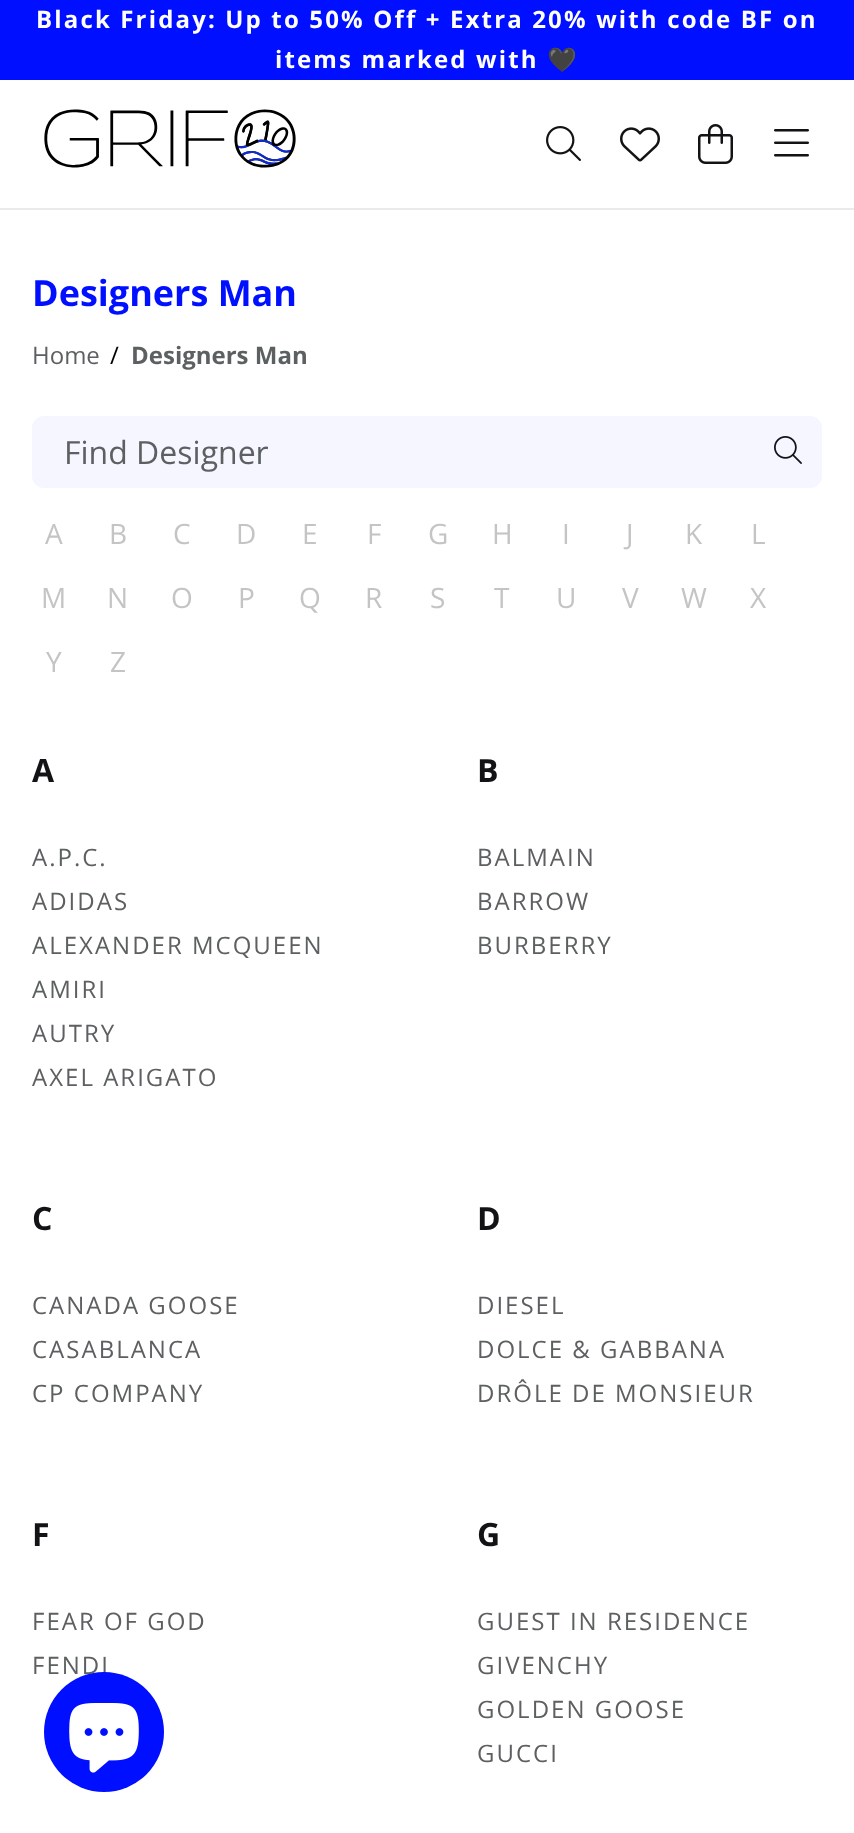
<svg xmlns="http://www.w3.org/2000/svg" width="854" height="1833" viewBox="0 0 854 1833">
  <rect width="100%" height="100%" fill="rgb(255,255,255)"/>
  <rect x="0" y="0" width="854" height="80" fill="rgb(0,15,255)"/>
  <g font-family="Open Sans" font-size="24" font-weight="bold" letter-spacing="2.15" fill="rgb(255,255,255)">
    <text x="36" y="28">Black Friday: Up to 50% Off + Extra 20% with code BF on</text>
    <text x="275" y="68">items marked with</text>
  </g>
  <text x="547" y="68" font-family="Noto Color Emoji" font-size="24" font-weight="bold" letter-spacing="2.15" fill="rgb(255,255,255)">🖤</text>
  <rect x="0" y="208" width="854" height="2" fill="rgb(234,234,234)"/>
  <image x="44" y="109" width="252" height="59" href="pic1.png"/>
  <image x="546" y="126" width="35" height="35" href="pic2.png"/>
  <image x="620" y="127" width="40" height="35" href="pic3.png"/>
  <image x="698" y="124" width="35" height="40" href="pic4.png"/>
  <image x="774" y="129" width="35" height="28" href="pic5.png"/>
  <text x="32" y="306" font-family="Open Sans" font-size="36" font-weight="bold" fill="rgb(0,15,255)">Designers Man</text>
  <text x="32" y="364" font-family="Open Sans" font-size="24" fill="rgb(93,96,97)">Home</text>
  <text x="110" y="364" font-family="Open Sans" font-size="24" fill="rgb(0,0,0)">/</text>
  <text x="131" y="364" font-family="Open Sans" font-size="24" font-weight="bold" fill="rgb(93,96,97)">Designers Man</text>
  <rect x="32" y="416" width="790" height="72" rx="12" fill="rgb(245,246,255)"/>
  <text x="64" y="464" font-family="Open Sans" font-size="32" fill="rgb(93,96,97)">Find Designer</text>
  <image x="774" y="436" width="28" height="28" href="pic6.png"/>
  <g font-family="Open Sans" font-size="28" fill="rgb(196,196,196)">
    <text x="45" y="544">A</text>
    <text x="109" y="544">B</text>
    <text x="173" y="544">C</text>
    <text x="236" y="544">D</text>
    <text x="302" y="544">E</text>
    <text x="367" y="544">F</text>
    <text x="428" y="544">G</text>
    <text x="492" y="544">H</text>
    <text x="562" y="544">I</text>
    <text x="626" y="544">J</text>
    <text x="685" y="544">K</text>
    <text x="751" y="544">L</text>
    <text x="41" y="608">M</text>
    <text x="107" y="608">N</text>
    <text x="171" y="608">O</text>
    <text x="238" y="608">P</text>
    <text x="299" y="608">Q</text>
    <text x="365" y="608">R</text>
    <text x="430" y="608">S</text>
    <text x="494" y="608">T</text>
    <text x="556" y="608">U</text>
    <text x="622" y="608">V</text>
    <text x="681" y="608">W</text>
    <text x="750" y="608">X</text>
    <text x="46" y="672">Y</text>
    <text x="110" y="672">Z</text>
  </g>
  <text x="32" y="782" font-family="Open Sans" font-size="32" font-weight="bold" letter-spacing="2" fill="rgb(19,18,20)">A</text>
  <g font-family="Open Sans" font-size="24" letter-spacing="2" fill="rgb(93,96,97)">
    <text>
      <tspan x="32" y="866">A.P.C.</tspan>
      <tspan x="32" y="910">ADIDAS</tspan>
      <tspan x="32" y="954">ALEXANDER MCQUEEN</tspan>
      <tspan x="32" y="998">AMIRI</tspan>
      <tspan x="32" y="1042">AUTRY</tspan>
      <tspan x="32" y="1086">AXEL ARIGATO</tspan>
    </text>
  </g>
  <text x="477" y="782" font-family="Open Sans" font-size="32" font-weight="bold" letter-spacing="2" fill="rgb(19,18,20)">B</text>
  <g font-family="Open Sans" font-size="24" letter-spacing="2" fill="rgb(93,96,97)">
    <text>
      <tspan x="477" y="866">BALMAIN</tspan>
      <tspan x="477" y="910">BARROW</tspan>
      <tspan x="477" y="954">BURBERRY</tspan>
    </text>
  </g>
  <text x="32" y="1230" font-family="Open Sans" font-size="32" font-weight="bold" letter-spacing="2" fill="rgb(19,18,20)">C</text>
  <g font-family="Open Sans" font-size="24" letter-spacing="2" fill="rgb(93,96,97)">
    <text>
      <tspan x="32" y="1314">CANADA GOOSE</tspan>
      <tspan x="32" y="1358">CASABLANCA</tspan>
      <tspan x="32" y="1402">CP COMPANY</tspan>
    </text>
  </g>
  <text x="477" y="1230" font-family="Open Sans" font-size="32" font-weight="bold" letter-spacing="2" fill="rgb(19,18,20)">D</text>
  <g font-family="Open Sans" font-size="24" letter-spacing="2" fill="rgb(93,96,97)">
    <text>
      <tspan x="477" y="1314">DIESEL</tspan>
      <tspan x="477" y="1358">DOLCE &amp; GABBANA</tspan>
      <tspan x="477" y="1402">DRÔLE DE MONSIEUR</tspan>
    </text>
  </g>
  <text x="32" y="1546" font-family="Open Sans" font-size="32" font-weight="bold" letter-spacing="2" fill="rgb(19,18,20)">F</text>
  <g font-family="Open Sans" font-size="24" letter-spacing="2" fill="rgb(93,96,97)">
    <text>
      <tspan x="32" y="1630">FEAR OF GOD</tspan>
      <tspan x="32" y="1674">FENDI</tspan>
    </text>
  </g>
  <text x="477" y="1546" font-family="Open Sans" font-size="32" font-weight="bold" letter-spacing="2" fill="rgb(19,18,20)">G</text>
  <g font-family="Open Sans" font-size="24" letter-spacing="2" fill="rgb(93,96,97)">
    <text>
      <tspan x="477" y="1630">GUEST IN RESIDENCE</tspan>
      <tspan x="477" y="1674">GIVENCHY</tspan>
      <tspan x="477" y="1718">GOLDEN GOOSE</tspan>
      <tspan x="477" y="1762">GUCCI</tspan>
    </text>
  </g>
  <circle cx="104" cy="1732" r="60" fill="rgb(0,15,255)"/>
  <image x="69" y="1703" width="70" height="70" href="pic7.png"/>
</svg>
